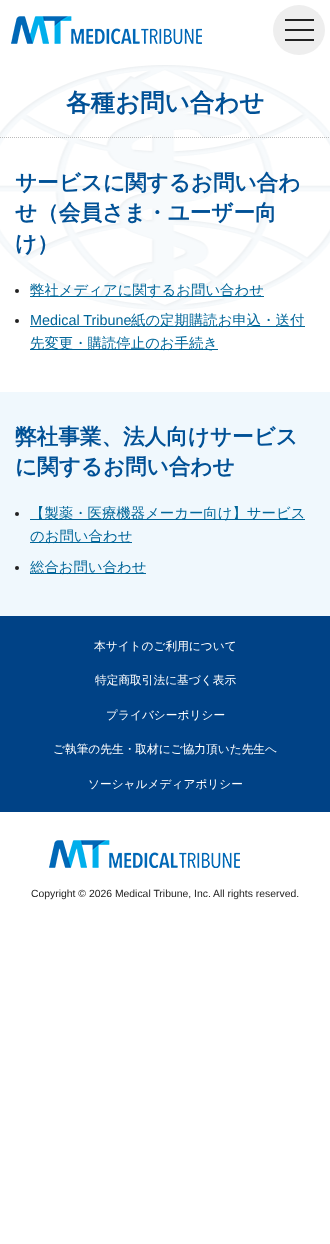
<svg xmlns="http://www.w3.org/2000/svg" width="330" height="1244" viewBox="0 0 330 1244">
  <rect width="100%" height="100%" fill="rgb(255,255,255)"/>
  <image x="0" y="65" width="330" height="245" href="pic1.png"/>
  <image x="11" y="16" width="191" height="28" href="pic2.png"/>
  <ellipse cx="299" cy="30" rx="26" ry="25" fill="rgb(238,238,238)"/>
  <rect x="285" y="29" width="29" height="2" fill="rgb(34,34,34)"/>
  <rect x="285" y="19" width="29" height="2" fill="rgb(34,34,34)"/>
  <rect x="285" y="39" width="29" height="2" fill="rgb(34,34,34)"/>
  <text x="66" y="111" font-family="WenQuanYi Zen Hei" font-size="24.5" font-weight="bold" fill="rgb(1,81,150)">各種お問い合わせ</text>
  <path d="M0 137.5H330" fill="none" stroke="rgb(187,187,187)" stroke-dasharray="1 1"/>
  <g font-family="WenQuanYi Zen Hei" font-size="21.6" font-weight="bold" fill="rgb(1,81,150)">
    <text>
      <tspan x="15" y="190">サービスに関するお問い合わ</tspan>
      <tspan x="15" y="220">せ（会員さま・ユーザー向</tspan>
      <tspan x="15" y="251">け）</tspan>
    </text>
  </g>
  <circle cx="17" cy="291" r="2" fill="rgb(34,34,34)"/>
  <rect x="30" y="296" width="234" height="1" fill="rgb(0,102,153)"/>
  <text x="30" y="295" font-family="WenQuanYi Zen Hei" font-size="14.4" font-weight="500" fill="rgb(0,102,153)">弊社メディアに関するお問い合わせ</text>
  <circle cx="17" cy="321" r="2" fill="rgb(34,34,34)"/>
  <text x="30" y="325" font-family="Liberation Sans" font-size="14.4" fill="rgb(0,102,153)">Medical Tribune</text>
  <rect x="30" y="326" width="275" height="1" fill="rgb(0,102,153)"/>
  <text x="131" y="325" font-family="WenQuanYi Zen Hei" font-size="14.4" font-weight="500" fill="rgb(0,102,153)">紙の定期購読お申込・送付</text>
  <rect x="30" y="349" width="188" height="1" fill="rgb(0,102,153)"/>
  <text x="30" y="348" font-family="WenQuanYi Zen Hei" font-size="14.4" font-weight="500" fill="rgb(0,102,153)">先変更・購読停止のお手続き</text>
  <rect x="0" y="392" width="330" height="224" fill="rgb(240,248,253)"/>
  <g font-family="WenQuanYi Zen Hei" font-size="21.6" font-weight="bold" fill="rgb(1,81,150)">
    <text>
      <tspan x="15" y="444">弊社事業、法人向けサービス</tspan>
      <tspan x="15" y="474">に関するお問い合わせ</tspan>
    </text>
  </g>
  <circle cx="17" cy="514" r="2" fill="rgb(34,34,34)"/>
  <rect x="30" y="519" width="275" height="1" fill="rgb(0,102,153)"/>
  <text x="30" y="518" font-family="WenQuanYi Zen Hei" font-size="14.4" font-weight="500" fill="rgb(0,102,153)">【製薬・医療機器メーカー向け】サービス</text>
  <rect x="30" y="542" width="102" height="1" fill="rgb(0,102,153)"/>
  <text x="30" y="541" font-family="WenQuanYi Zen Hei" font-size="14.4" font-weight="500" fill="rgb(0,102,153)">のお問い合わせ</text>
  <circle cx="17" cy="568" r="2" fill="rgb(34,34,34)"/>
  <rect x="30" y="573" width="116" height="1" fill="rgb(0,102,153)"/>
  <text x="30" y="572" font-family="WenQuanYi Zen Hei" font-size="14.4" font-weight="500" fill="rgb(0,102,153)">総合お問い合わせ</text>
  <rect x="0" y="616" width="330" height="196" fill="rgb(0,66,134)"/>
  <g font-family="WenQuanYi Zen Hei" font-size="11.7" font-weight="500" fill="rgb(255,255,255)">
    <text x="94" y="650">本サイトのご利用について</text>
    <text x="95" y="684">特定商取引法に基づく表示</text>
    <text x="106" y="719">プライバシーポリシー</text>
    <text x="53" y="753">ご執筆の先生・取材にご協力頂いた先生へ</text>
    <text x="88" y="788">ソーシャルメディアポリシー</text>
  </g>
  <image x="49" y="840" width="191" height="28" href="pic2.png"/>
  <text x="31" y="897" font-family="Liberation Sans" font-size="10.4" fill="rgb(34,34,34)">Copyright © 2026 Medical Tribune, Inc. All rights reserved.</text>
</svg>
